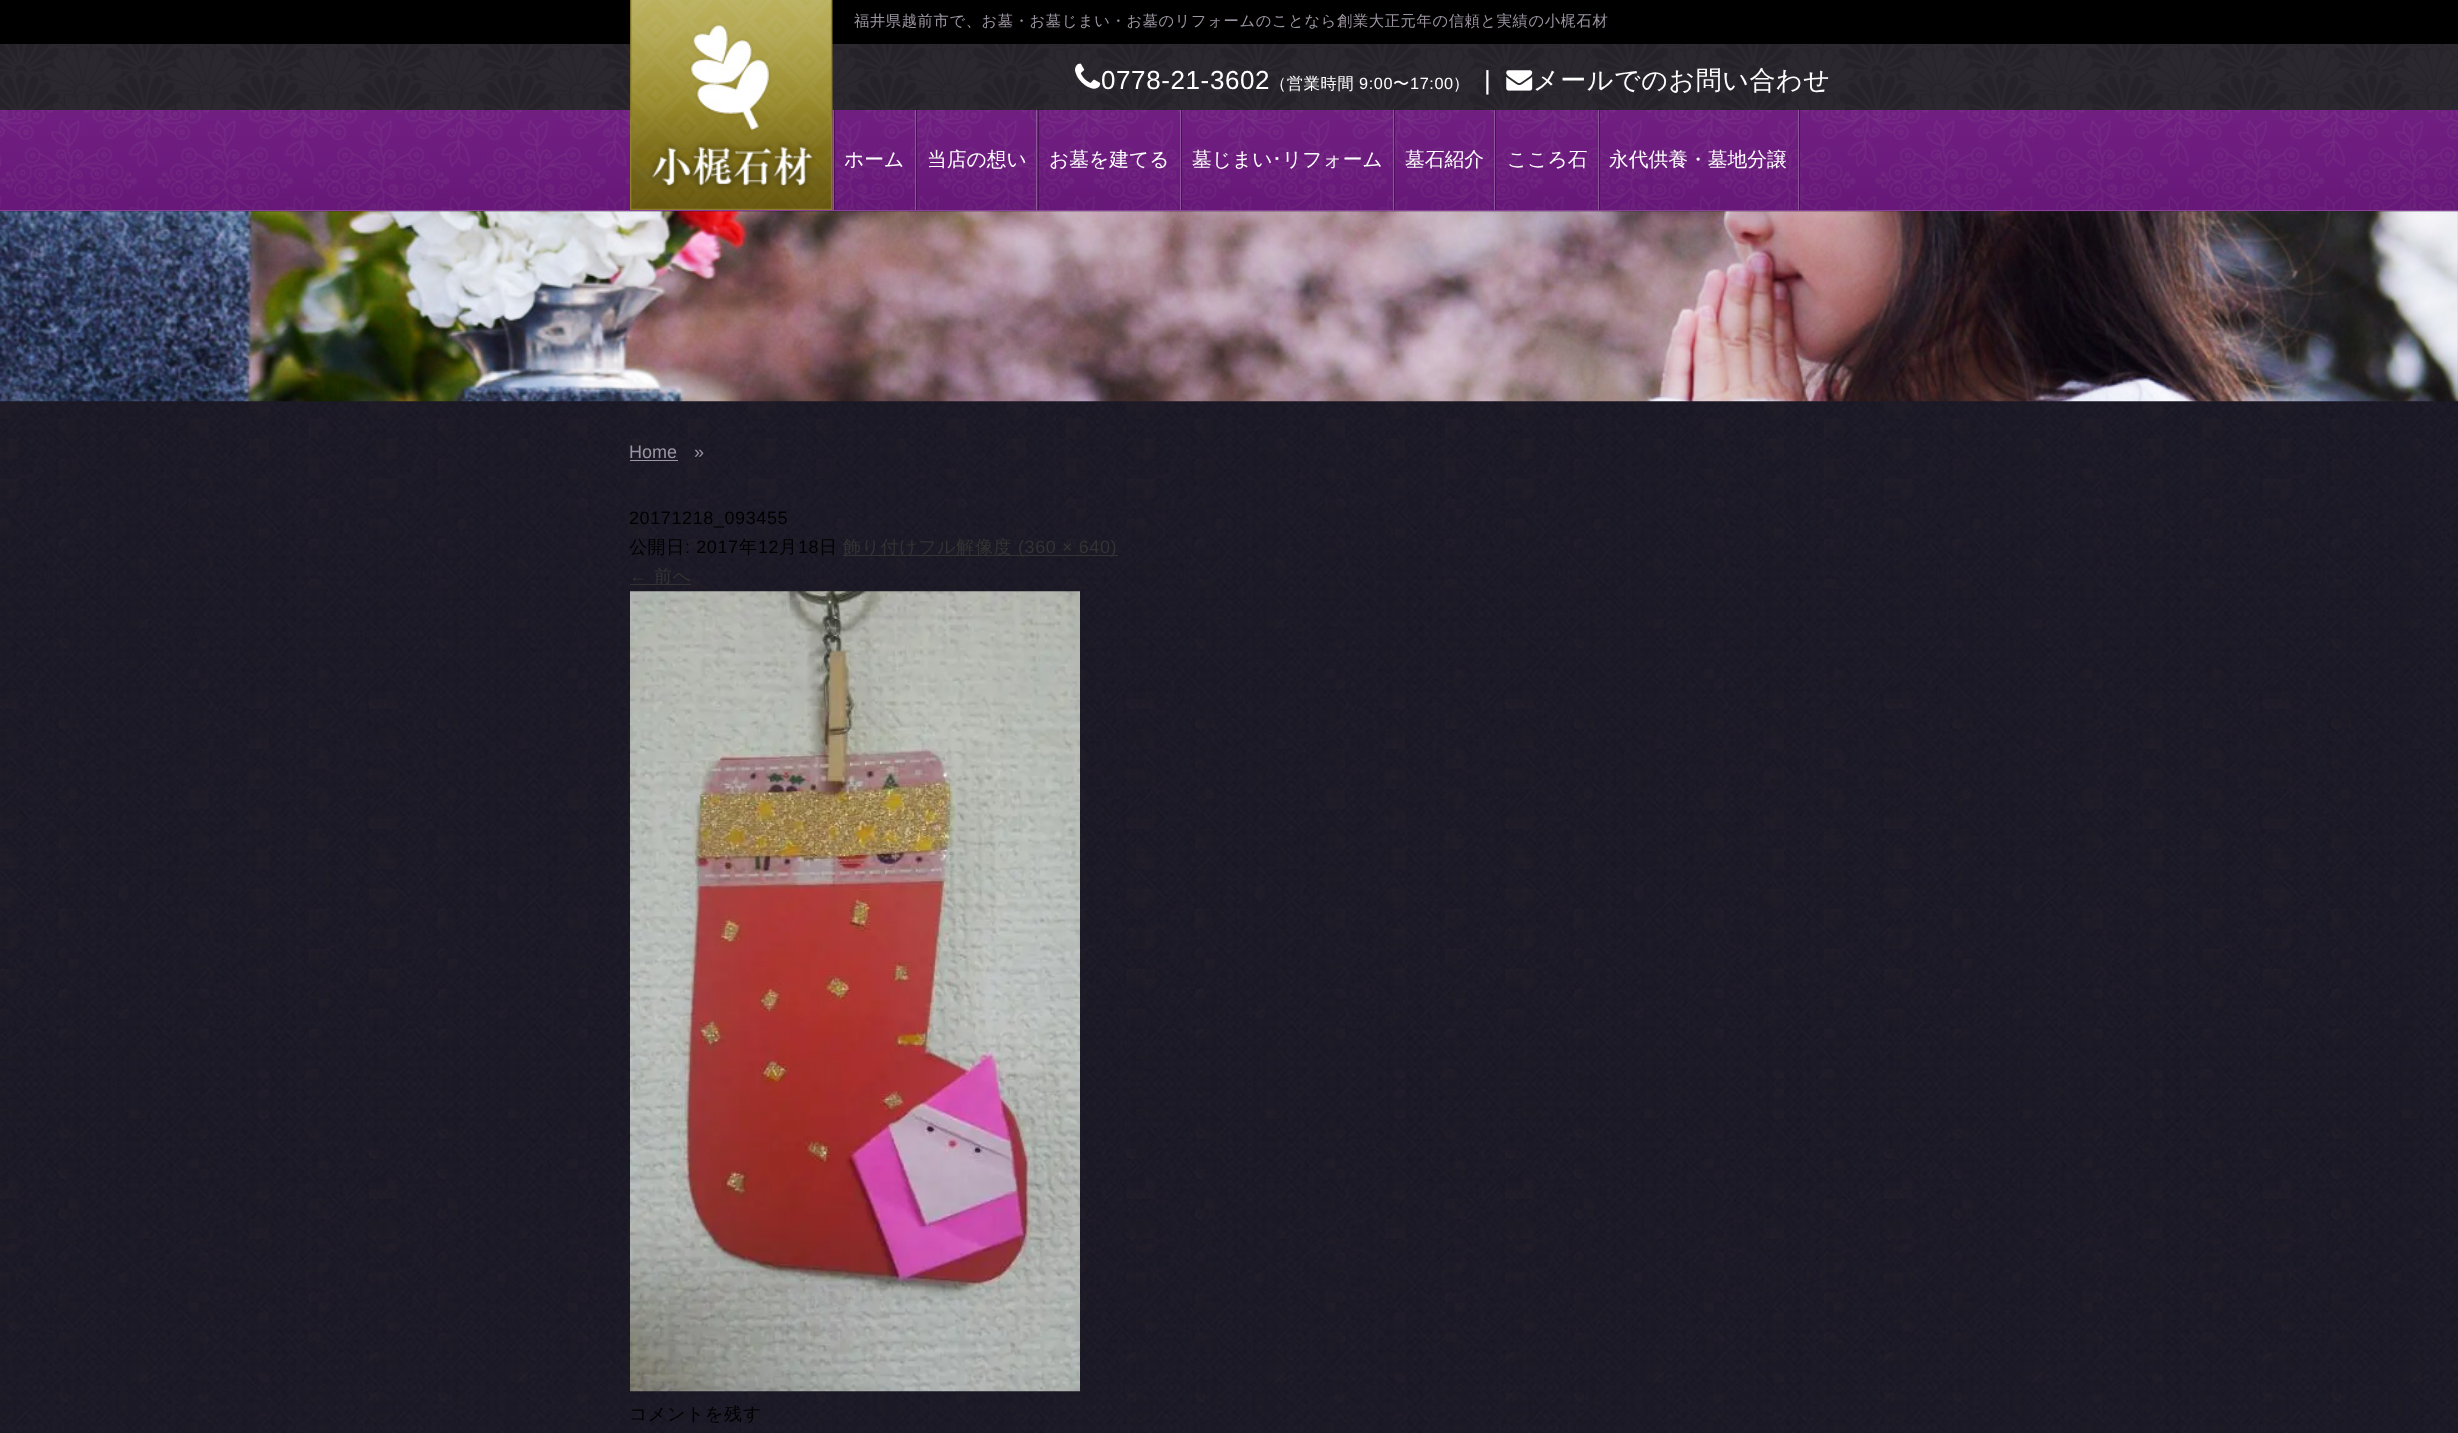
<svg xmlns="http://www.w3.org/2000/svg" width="2458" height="1433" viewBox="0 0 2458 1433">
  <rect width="100%" height="100%" fill="rgb(255,255,255)"/>
  <image x="0" y="211" width="2458" height="1222" href="pic1.png"/>
  <image x="0" y="44" width="2458" height="168" href="pic2.png"/>
  <rect x="0" y="0" width="2458" height="44" fill="rgb(0,0,0)"/>
  <image x="0" y="110" width="2458" height="102" href="pic6.png"/>
  <image x="630" y="0" width="203" height="210" href="pic3.png"/>
  <text x="854" y="26" font-family="WenQuanYi Zen Hei" font-size="15.3" font-weight="500" letter-spacing="0.6" fill="rgb(157,149,162)">福井県越前市で、お墓・お墓じまい・お墓のリフォームのことなら創業大正元年の信頼と実績の小梶石材</text>
  <image x="1075" y="63" width="26" height="26" href="pic4.png"/>
  <text x="1101" y="89" font-family="Liberation Sans" font-size="26" letter-spacing="0.6" fill="rgb(255,255,255)">0778-21-3602</text>
  <text x="1270" y="89" font-family="WenQuanYi Zen Hei" font-size="16.25" font-weight="500" letter-spacing="0.6" fill="rgb(255,255,255)">（営業時間</text>
  <text x="1359" y="89" font-family="Liberation Sans" font-size="16.25" letter-spacing="0.6" fill="rgb(255,255,255)">9:00</text>
  <text x="1393" y="89" font-family="WenQuanYi Zen Hei" font-size="16.25" font-weight="500" letter-spacing="0.6" fill="rgb(255,255,255)">〜</text>
  <text x="1410" y="89" font-family="Liberation Sans" font-size="16.25" letter-spacing="0.6" fill="rgb(255,255,255)">17:00</text>
  <text x="1453" y="89" font-family="WenQuanYi Zen Hei" font-size="16.25" font-weight="500" letter-spacing="0.6" fill="rgb(255,255,255)">）</text>
  <text x="1484" y="89" font-family="Liberation Sans" font-size="26" letter-spacing="0.6" fill="rgb(255,255,255)">|</text>
  <image x="1506" y="70" width="27" height="21" href="pic5.png"/>
  <text x="1533" y="89" font-family="WenQuanYi Zen Hei" font-size="26" font-weight="500" letter-spacing="0.6" fill="rgb(255,255,255)">メールでのお問い合わせ</text>
  <rect x="0" y="210" width="2458" height="1" fill="rgb(135,63,151)"/>
  <rect x="1799" y="110" width="1" height="100" fill="rgb(75,16,88)"/>
  <rect x="833" y="110" width="1" height="100" fill="rgb(141,86,155)"/>
  <rect x="915" y="110" width="1" height="100" fill="rgb(141,86,155)"/>
  <rect x="834" y="110" width="1" height="100" fill="rgb(75,16,88)"/>
  <text x="844" y="166" font-family="WenQuanYi Zen Hei" font-size="19.75" font-weight="500" fill="rgb(255,255,255)">ホーム</text>
  <rect x="1036" y="110" width="1" height="100" fill="rgb(141,86,155)"/>
  <rect x="916" y="110" width="1" height="100" fill="rgb(75,16,88)"/>
  <text x="927" y="166" font-family="WenQuanYi Zen Hei" font-size="19.75" font-weight="500" fill="rgb(255,255,255)">当店の想い</text>
  <rect x="1180" y="110" width="1" height="100" fill="rgb(141,86,155)"/>
  <rect x="1038" y="110" width="1" height="100" fill="rgb(75,16,88)"/>
  <text x="1049" y="166" font-family="WenQuanYi Zen Hei" font-size="19.75" font-weight="500" fill="rgb(255,255,255)">お墓を建てる</text>
  <rect x="1393" y="110" width="1" height="100" fill="rgb(141,86,155)"/>
  <rect x="1181" y="110" width="1" height="100" fill="rgb(75,16,88)"/>
  <text x="1192" y="166" font-family="WenQuanYi Zen Hei" font-size="19.75" font-weight="500" fill="rgb(255,255,255)">墓じまい</text>
  <text x="1272" y="166" font-family="IPAPGothic" font-size="19.75" fill="rgb(255,255,255)">･</text>
  <text x="1282" y="166" font-family="WenQuanYi Zen Hei" font-size="19.75" font-weight="500" fill="rgb(255,255,255)">リフォーム</text>
  <rect x="1494" y="110" width="1" height="100" fill="rgb(141,86,155)"/>
  <rect x="1394" y="110" width="1" height="100" fill="rgb(75,16,88)"/>
  <text x="1405" y="166" font-family="WenQuanYi Zen Hei" font-size="19.75" font-weight="500" fill="rgb(255,255,255)">墓石紹介</text>
  <rect x="1598" y="110" width="1" height="100" fill="rgb(141,86,155)"/>
  <rect x="1495" y="110" width="1" height="100" fill="rgb(75,16,88)"/>
  <text x="1507" y="166" font-family="WenQuanYi Zen Hei" font-size="19.75" font-weight="500" fill="rgb(255,255,255)">こころ石</text>
  <rect x="1798" y="110" width="1" height="100" fill="rgb(141,86,155)"/>
  <rect x="1599" y="110" width="1" height="100" fill="rgb(75,16,88)"/>
  <text x="1609" y="166" font-family="WenQuanYi Zen Hei" font-size="19.75" font-weight="500" fill="rgb(255,255,255)">永代供養・墓地分譲</text>
  <image x="0" y="211" width="2458" height="191" href="pic7.png"/>
  <text x="629" y="458" font-family="Liberation Sans" font-size="18" fill="rgb(157,149,162)">Home</text>
  <rect x="630" y="460" width="48" height="1" fill="rgb(157,149,162)"/>
  <text x="694" y="458" font-family="Liberation Sans" font-size="18" fill="rgb(157,149,162)">»</text>
  <text x="629" y="524" font-family="Liberation Sans" font-size="18" letter-spacing="0.6" fill="rgb(0,0,0)">20171218_093455</text>
  <text x="629" y="553" font-family="WenQuanYi Zen Hei" font-size="18" font-weight="500" letter-spacing="0.6" fill="rgb(0,0,0)">公開日</text>
  <text x="685" y="553" font-family="Liberation Sans" font-size="18" letter-spacing="0.6" fill="rgb(0,0,0)">: 2017</text>
  <text x="739" y="553" font-family="WenQuanYi Zen Hei" font-size="18" font-weight="500" letter-spacing="0.6" fill="rgb(0,0,0)">年</text>
  <text x="758" y="553" font-family="Liberation Sans" font-size="18" letter-spacing="0.6" fill="rgb(0,0,0)">12</text>
  <text x="779" y="553" font-family="WenQuanYi Zen Hei" font-size="18" font-weight="500" letter-spacing="0.6" fill="rgb(0,0,0)">月</text>
  <text x="798" y="553" font-family="Liberation Sans" font-size="18" letter-spacing="0.6" fill="rgb(0,0,0)">18</text>
  <text x="819" y="553" font-family="WenQuanYi Zen Hei" font-size="18" font-weight="500" letter-spacing="0.6" fill="rgb(0,0,0)">日</text>
  <rect x="843" y="555" width="275" height="1" fill="rgb(51,51,51)"/>
  <text x="843" y="553" font-family="WenQuanYi Zen Hei" font-size="18" font-weight="500" letter-spacing="0.6" fill="rgb(51,51,51)">飾り付けフル解像度</text>
  <g font-family="Liberation Sans" font-size="18" letter-spacing="0.6" fill="rgb(51,51,51)">
    <text x="1018" y="553">(360 × 640)</text>
    <text x="629" y="582">←</text>
  </g>
  <rect x="630" y="584" width="61" height="1" fill="rgb(51,51,51)"/>
  <text x="654" y="582" font-family="WenQuanYi Zen Hei" font-size="18" font-weight="500" letter-spacing="0.6" fill="rgb(51,51,51)">前へ</text>
  <image x="630" y="591" width="450" height="801" href="pic8.png"/>
  <text x="629" y="1420" font-family="WenQuanYi Zen Hei" font-size="18" font-weight="500" letter-spacing="0.6" fill="rgb(0,0,0)">コメントを残す</text>
</svg>
